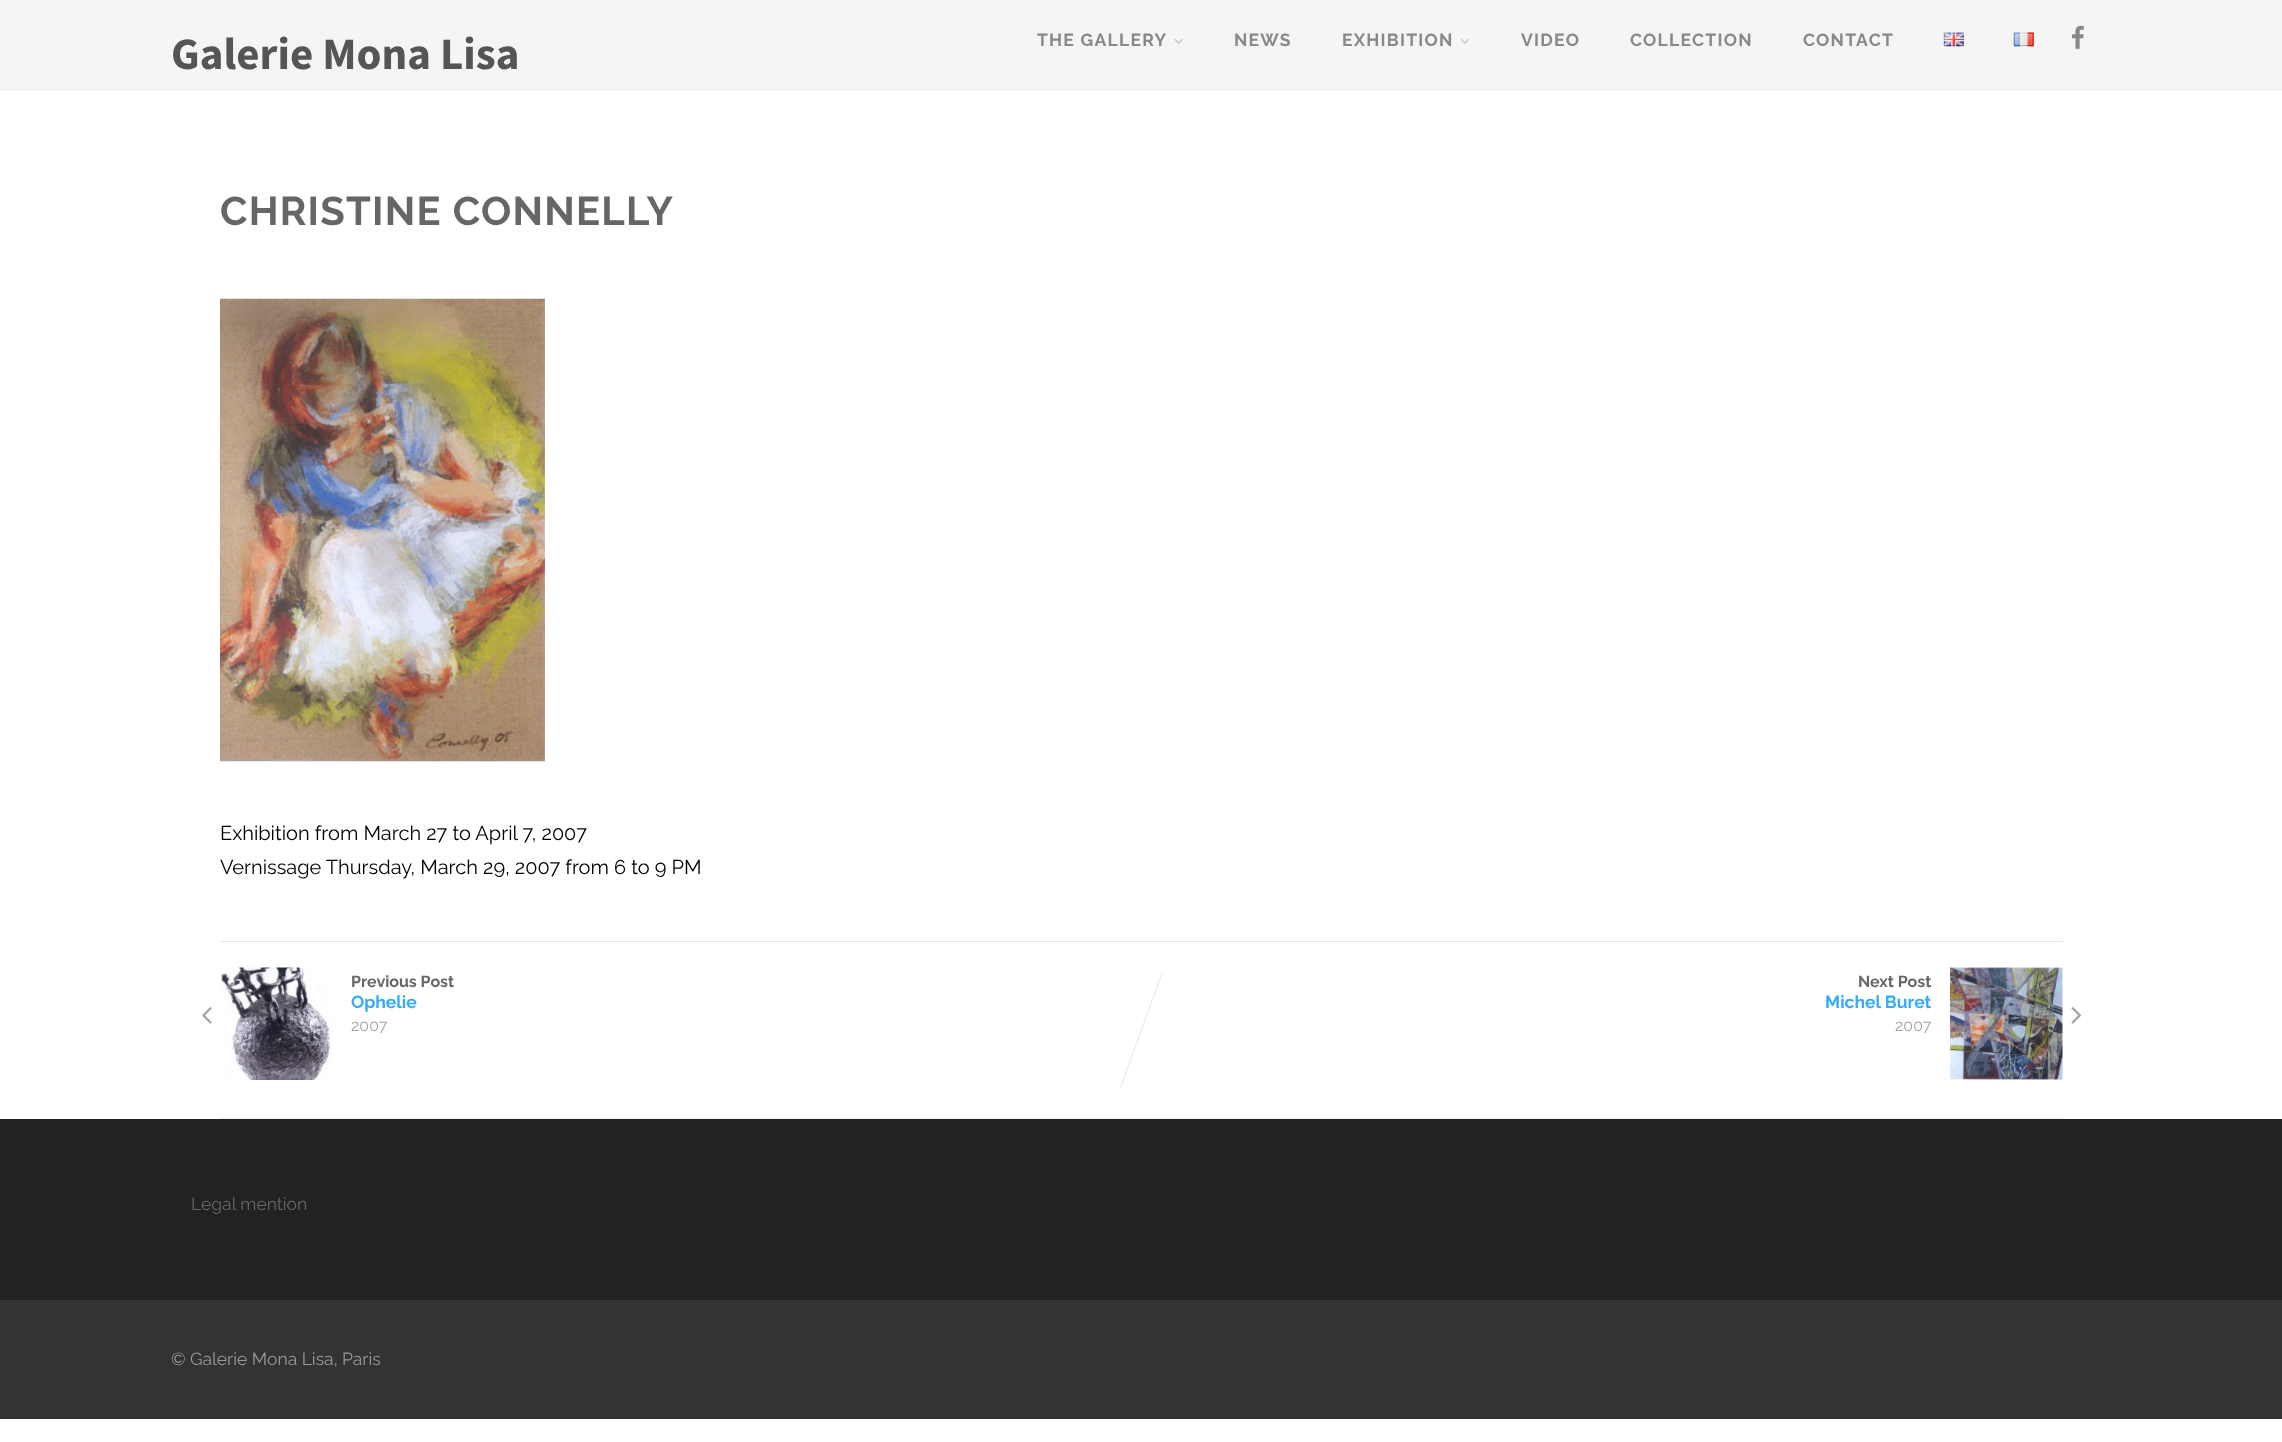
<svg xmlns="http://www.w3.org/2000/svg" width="2282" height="1442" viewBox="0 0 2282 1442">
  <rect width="100%" height="100%" fill="rgb(255,255,255)"/>
  <rect x="0" y="0" width="2282" height="91" fill="rgb(245,245,245)"/>
  <text x="171" y="69" font-family="Source Sans Pro" font-size="45" font-weight="bold" fill="rgb(85,85,85)">Galerie Mona Lisa</text>
  <text x="1037" y="46" font-family="Raleway" font-size="17.5" font-weight="bold" letter-spacing="1.25" fill="rgb(136,136,136)">THE GALLERY</text>
  <image x="1174" y="39" width="9" height="5" href="pic1.png"/>
  <g font-family="Raleway" font-size="17.5" font-weight="bold" letter-spacing="1.25" fill="rgb(136,136,136)">
    <text x="1234" y="46">NEWS</text>
    <text x="1342" y="46">EXHIBITION</text>
  </g>
  <image x="1460" y="39" width="9" height="5" href="pic2.png"/>
  <g font-family="Raleway" font-size="17.5" font-weight="bold" letter-spacing="1.25" fill="rgb(136,136,136)">
    <text x="1521" y="46">VIDEO</text>
    <text x="1630" y="46">COLLECTION</text>
    <text x="1803" y="46">CONTACT</text>
  </g>
  <image x="1943" y="32" width="21" height="15" href="pic3.png"/>
  <image x="2013" y="32" width="21" height="15" href="pic4.png"/>
  <image x="2071" y="25" width="13" height="24" href="pic5.png"/>
  <text x="220" y="225" font-family="Raleway" font-size="40" font-weight="bold" letter-spacing="1.25" fill="rgb(102,102,102)">CHRISTINE CONNELLY</text>
  <image x="220" y="298" width="325" height="464" href="pic6.png"/>
  <g font-family="Raleway" font-size="20" fill="rgb(0,0,0)">
    <text>
      <tspan x="220" y="840">Exhibition from March 27 to April 7, 2007</tspan>
      <tspan x="220" y="874">Vernissage Thursday, March 29, 2007 from 6 to 9 PM</tspan>
    </text>
  </g>
  <rect x="220" y="941" width="1843" height="1" fill="rgb(230,230,230)"/>
  <rect x="220" y="1118" width="1843" height="1" fill="rgb(235,235,235)"/>
  <image x="220" y="967" width="112" height="113" href="pic7.png"/>
  <text x="351" y="987" font-family="Raleway" font-size="16" font-weight="bold" fill="rgb(102,102,102)">Previous Post</text>
  <text x="351" y="1008" font-family="Raleway" font-size="17.5" font-weight="bold" fill="rgb(54,171,252)">Ophelie</text>
  <image x="202" y="1007" width="10" height="17" href="pic8.png"/>
  <text x="351" y="1031" font-family="Raleway" font-size="16" fill="rgb(163,163,163)">2007</text>
  <path d="M1162 972H1163L1121 1087H1120Z" fill="rgb(230,230,230)"/>
  <text x="1858" y="987" font-family="Raleway" font-size="16" font-weight="bold" fill="rgb(102,102,102)">Next Post</text>
  <image x="1950" y="967" width="113" height="113" href="pic9.png"/>
  <text x="1825" y="1008" font-family="Raleway" font-size="17.5" font-weight="bold" fill="rgb(54,171,252)">Michel Buret</text>
  <image x="2071" y="1007" width="11" height="17" href="pic10.png"/>
  <text x="1895" y="1031" font-family="Raleway" font-size="16" fill="rgb(163,163,163)">2007</text>
  <rect x="0" y="1119" width="2282" height="181" fill="rgb(34,34,34)"/>
  <text x="191" y="1210" font-family="Raleway" font-size="17.5" fill="rgb(102,102,102)">Legal mention</text>
  <rect x="0" y="1300" width="2282" height="119" fill="rgb(51,51,51)"/>
  <text x="171" y="1365" font-family="Raleway" font-size="17.5" fill="rgb(153,153,153)">© Galerie Mona Lisa, Paris</text>
</svg>
